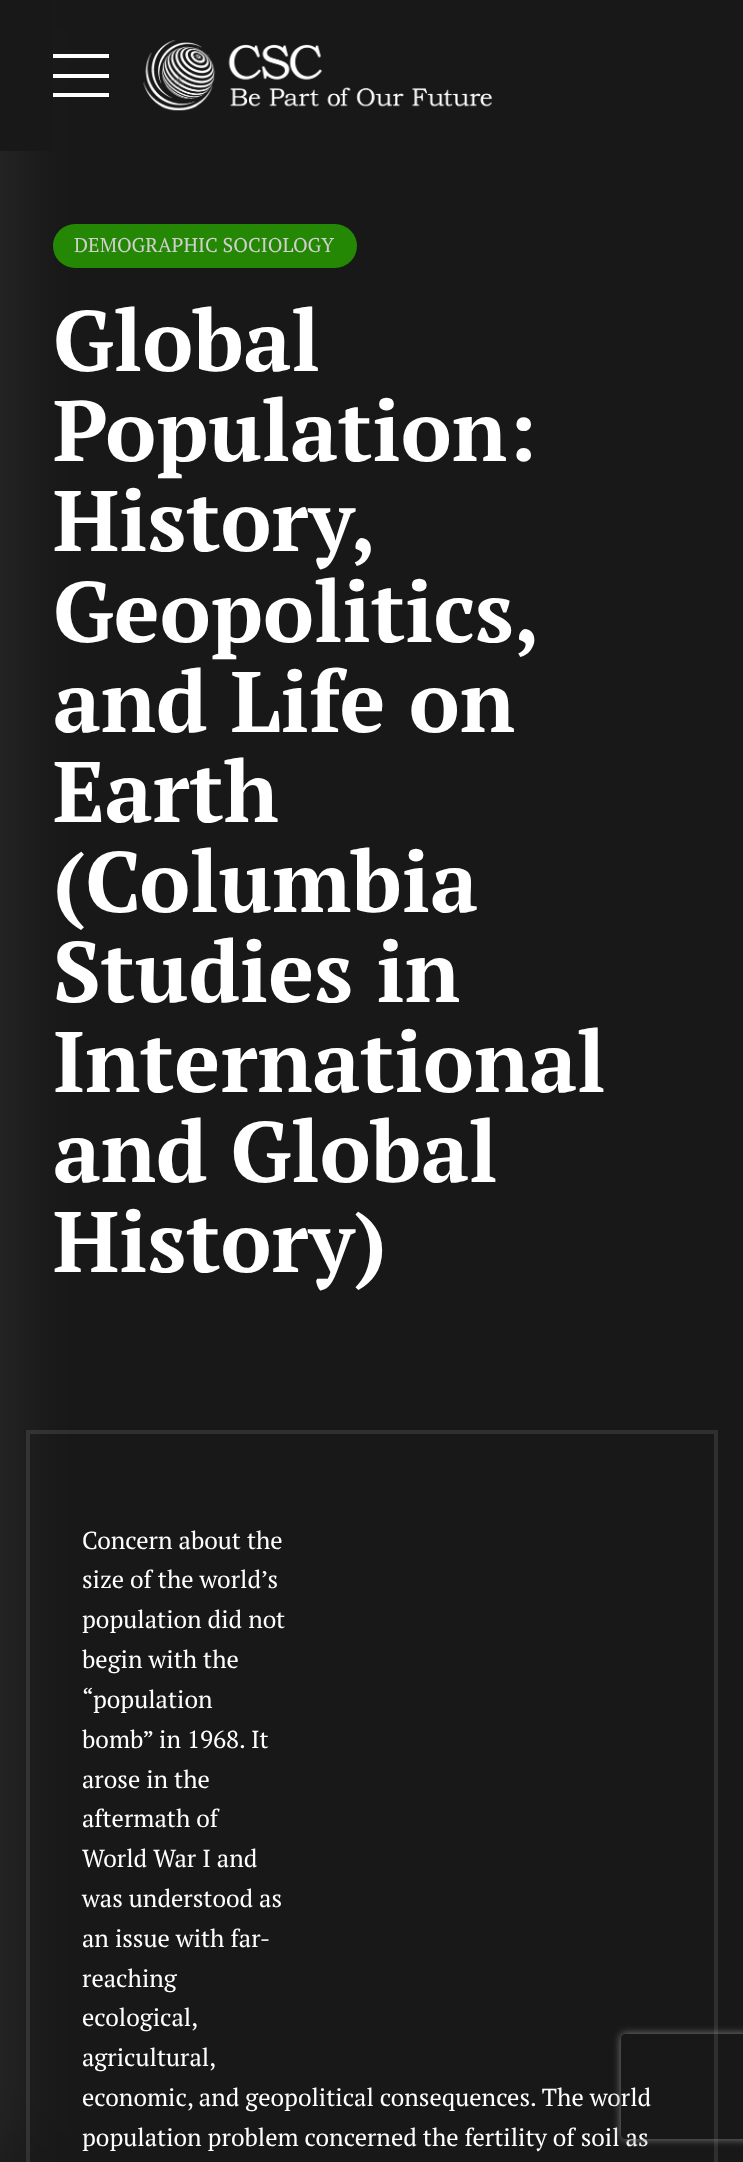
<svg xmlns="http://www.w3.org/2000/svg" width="743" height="2162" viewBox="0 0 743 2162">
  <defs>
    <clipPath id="clip1"><path d="M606 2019H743V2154H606ZM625 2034H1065C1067 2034 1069 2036 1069 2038V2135C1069 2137 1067 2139 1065 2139H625C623 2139 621 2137 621 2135V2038C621 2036 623 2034 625 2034Z" clip-rule="evenodd"/></clipPath>
  </defs>
  <rect width="100%" height="100%" fill="rgb(24,24,24)"/>
  <rect x="53" y="224" width="304" height="44" rx="22" fill="rgb(36,136,4)"/>
  <rect x="28" y="1432" width="688" height="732" fill="none" stroke="rgb(47,47,47)" stroke-width="4"/>
  <rect x="-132" y="0" width="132" height="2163" fill="rgba(255,255,255,0.1)" filter="blur(44px)"/>
  <rect x="0" y="0" width="53" height="151" fill="rgb(24,24,24)"/>
  <rect x="53" y="54" width="56" height="4" fill="rgb(255,255,255)"/>
  <rect x="53" y="74" width="56" height="4" fill="rgb(255,255,255)"/>
  <rect x="53" y="93" width="56" height="4" fill="rgb(255,255,255)"/>
  <image x="143" y="40" width="349" height="71" href="pic1.png"/>
  <text x="74" y="252" font-family="PT Serif" font-size="19.9" fill="rgb(208,208,208)">DEMOGRAPHIC SOCIOLOGY</text>
  <g font-family="PT Serif" font-size="85.75" font-weight="bold" fill="rgb(255,255,255)">
    <text>
      <tspan x="53" y="371">Global</tspan>
      <tspan x="53" y="461">Population:</tspan>
      <tspan x="53" y="551">History,</tspan>
      <tspan x="53" y="642">Geopolitics,</tspan>
      <tspan x="53" y="732">and Life on</tspan>
      <tspan x="53" y="822">Earth</tspan>
      <tspan x="53" y="912">(Columbia</tspan>
      <tspan x="53" y="1002">Studies in</tspan>
      <tspan x="53" y="1092">International</tspan>
      <tspan x="53" y="1182">and Global</tspan>
      <tspan x="53" y="1272">History)</tspan>
    </text>
  </g>
  <g font-family="PT Serif" font-size="24.5" fill="rgb(255,255,255)">
    <text>
      <tspan x="82" y="1549">Concern about the</tspan>
      <tspan x="82" y="1588">size of the world’s</tspan>
      <tspan x="82" y="1628">population did not</tspan>
      <tspan x="82" y="1668">begin with the</tspan>
      <tspan x="82" y="1708">“population</tspan>
      <tspan x="82" y="1748">bomb” in 1968. It</tspan>
      <tspan x="82" y="1788">arose in the</tspan>
      <tspan x="82" y="1827">aftermath of</tspan>
      <tspan x="82" y="1867">World War I and</tspan>
      <tspan x="82" y="1907">was understood as</tspan>
      <tspan x="82" y="1947">an issue with far-</tspan>
      <tspan x="82" y="1987">reaching</tspan>
      <tspan x="82" y="2026">ecological,</tspan>
      <tspan x="82" y="2066">agricultural,</tspan>
      <tspan x="82" y="2106">economic, and geopolitical consequences. The world</tspan>
      <tspan x="82" y="2146">population problem concerned the fertility of soil as</tspan>
    </text>
  </g>
  <g clip-path="url(#clip1)">
    <rect x="621" y="2034" width="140" height="105" rx="4" fill="rgb(128,128,128)" filter="blur(4.5px)"/>
  </g>
</svg>
